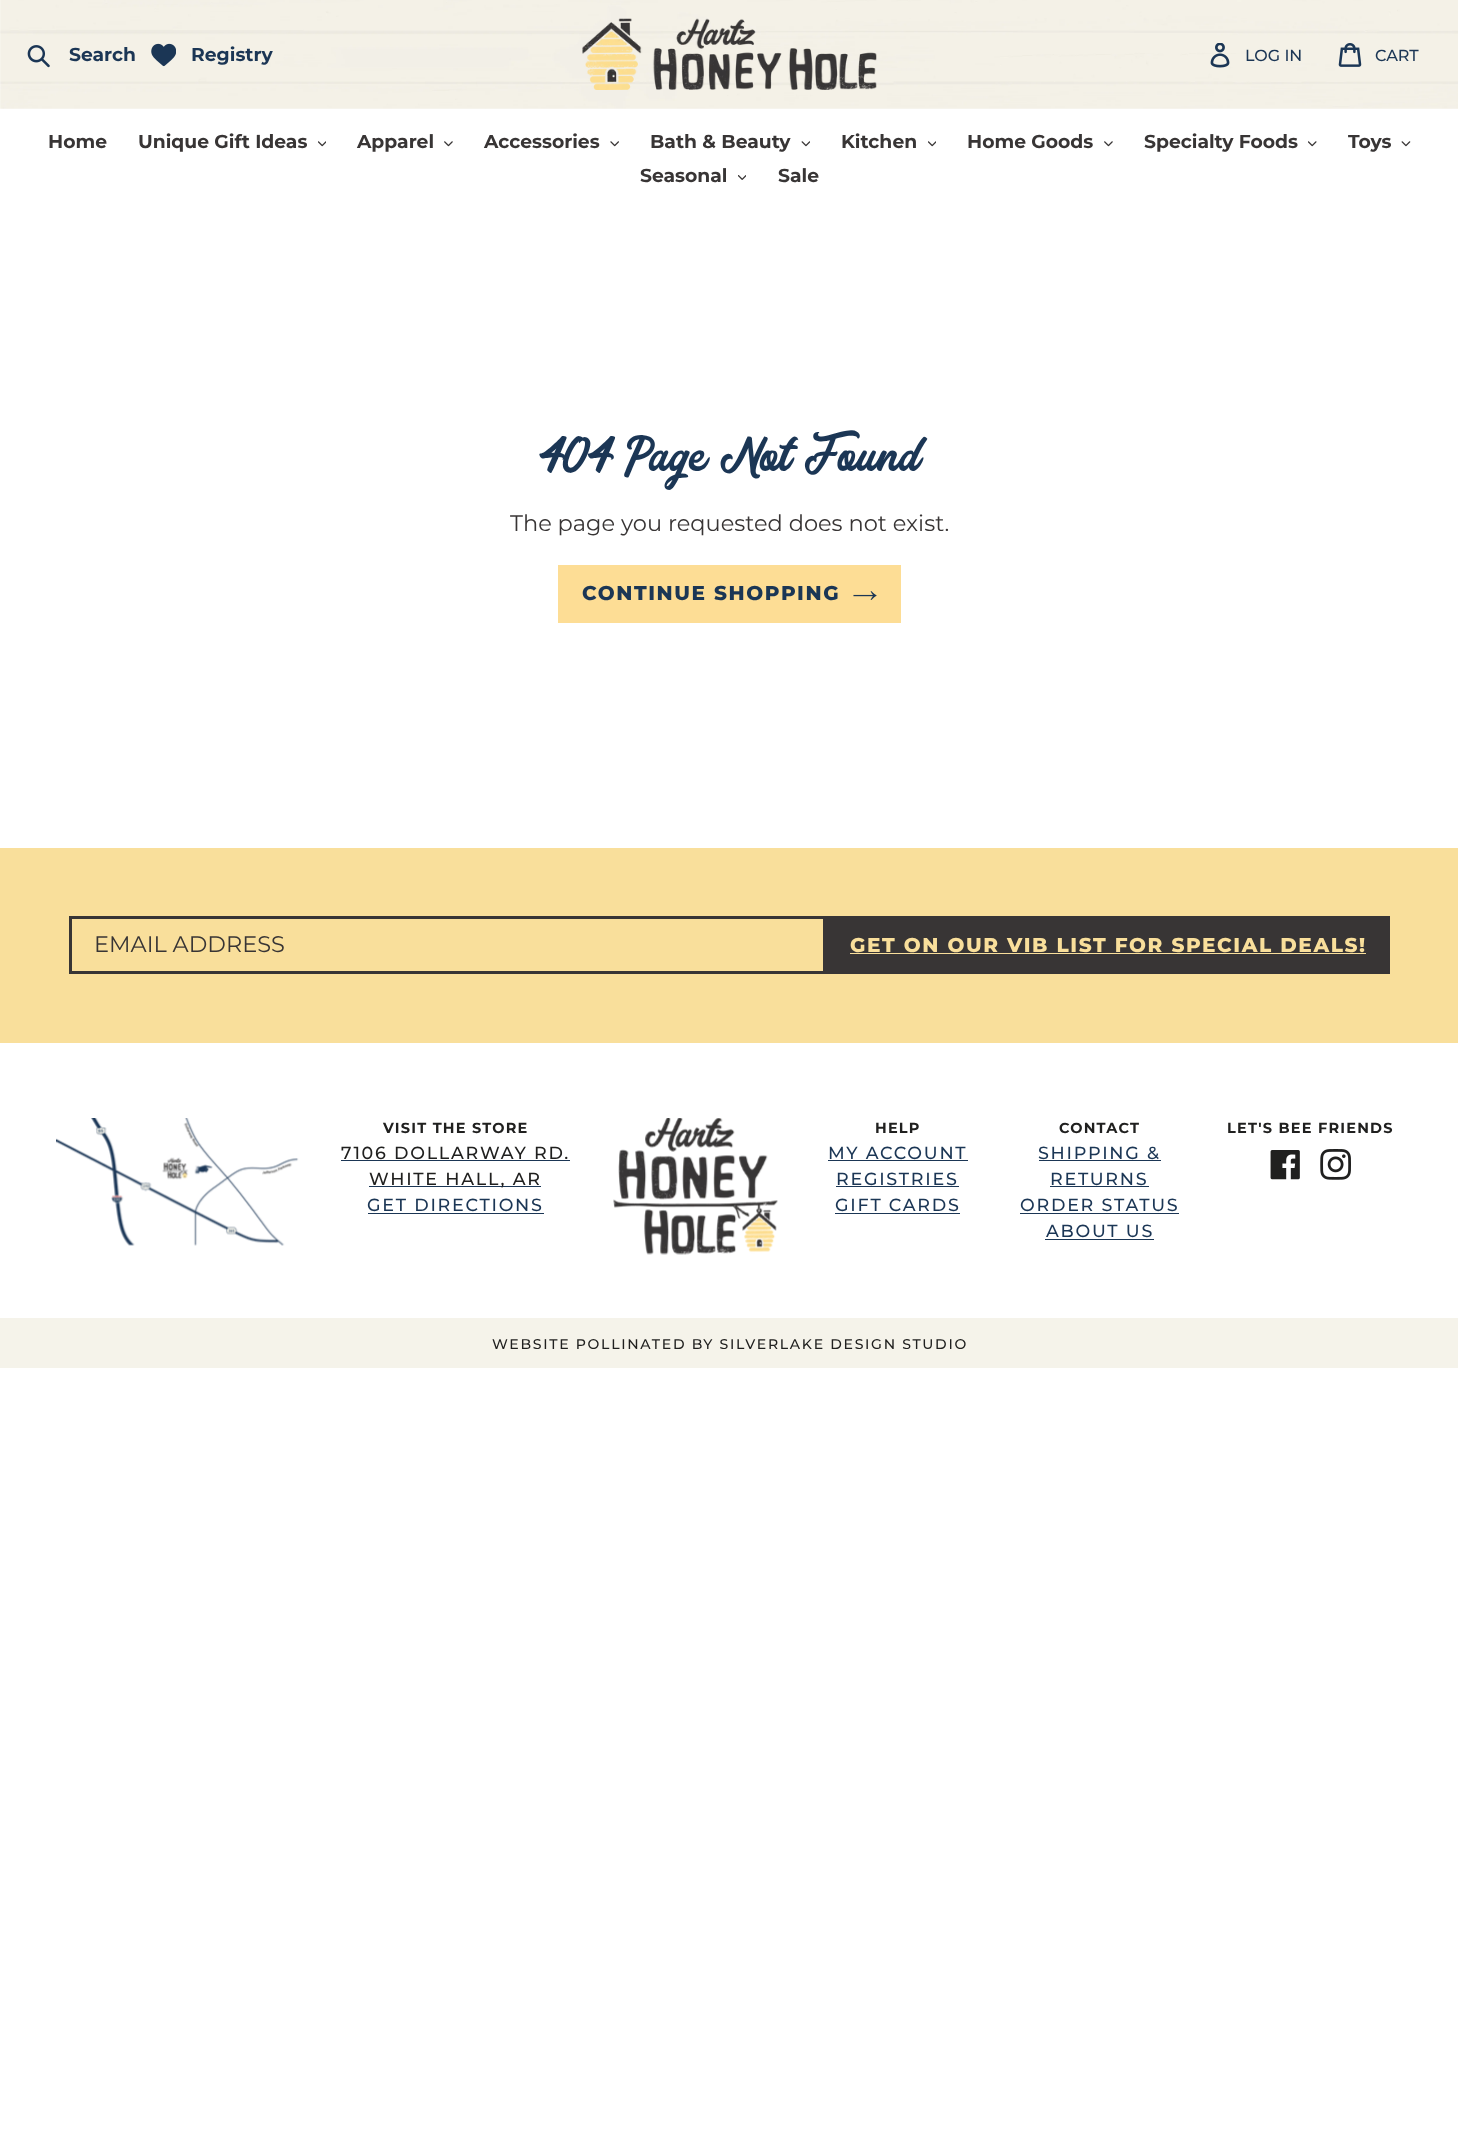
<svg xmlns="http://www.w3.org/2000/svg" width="1458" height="2139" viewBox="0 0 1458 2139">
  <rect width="100%" height="100%" fill="rgb(255,255,255)"/>
  <image x="0" y="0" width="1458" height="109" href="pic1.png"/>
  <image x="27" y="45" width="23" height="23" href="pic2.png"/>
  <text x="69" y="61" font-family="Montserrat" font-size="18.75" font-weight="bold" fill="rgb(27,54,85)">Search</text>
  <image x="151" y="43" width="25" height="24" href="pic3.png"/>
  <text x="191" y="61" font-family="Montserrat" font-size="18.75" font-weight="bold" fill="rgb(27,54,85)">Registry</text>
  <image x="582" y="18" width="295" height="72" href="pic4.png"/>
  <image x="1210" y="43" width="20" height="25" href="pic5.png"/>
  <text x="1245" y="61" font-family="Montserrat" font-size="16" font-weight="500" fill="rgb(27,54,85)">LOG IN</text>
  <image x="1338" y="43" width="24" height="24" href="pic6.png"/>
  <text x="1375" y="61" font-family="Montserrat" font-size="16" font-weight="500" fill="rgb(27,54,85)">CART</text>
  <g font-family="Montserrat" font-size="18.75" font-weight="bold" fill="rgb(56,53,53)">
    <text x="48" y="148">Home</text>
    <text x="138" y="148">Unique Gift Ideas</text>
  </g>
  <image x="318" y="141" width="8" height="6" href="pic7.png"/>
  <text x="357" y="148" font-family="Montserrat" font-size="18.75" font-weight="bold" fill="rgb(56,53,53)">Apparel</text>
  <image x="444" y="141" width="9" height="6" href="pic8.png"/>
  <text x="484" y="148" font-family="Montserrat" font-size="18.75" font-weight="bold" fill="rgb(56,53,53)">Accessories</text>
  <image x="610" y="141" width="9" height="6" href="pic9.png"/>
  <text x="650" y="148" font-family="Montserrat" font-size="18.75" font-weight="bold" fill="rgb(56,53,53)">Bath &amp; Beauty</text>
  <image x="801" y="141" width="9" height="6" href="pic10.png"/>
  <text x="841" y="148" font-family="Montserrat" font-size="18.75" font-weight="bold" fill="rgb(56,53,53)">Kitchen</text>
  <image x="928" y="141" width="8" height="6" href="pic7.png"/>
  <text x="967" y="148" font-family="Montserrat" font-size="18.75" font-weight="bold" fill="rgb(56,53,53)">Home Goods</text>
  <image x="1104" y="141" width="9" height="6" href="pic8.png"/>
  <text x="1144" y="148" font-family="Montserrat" font-size="18.75" font-weight="bold" fill="rgb(56,53,53)">Specialty Foods</text>
  <image x="1308" y="141" width="9" height="6" href="pic11.png"/>
  <text x="1348" y="148" font-family="Montserrat" font-size="18.75" font-weight="bold" fill="rgb(56,53,53)">Toys</text>
  <image x="1401" y="141" width="10" height="6" href="pic12.png"/>
  <text x="640" y="182" font-family="Montserrat" font-size="18.75" font-weight="bold" fill="rgb(56,53,53)">Seasonal</text>
  <image x="738" y="175" width="8" height="5" href="pic13.png"/>
  <text x="778" y="182" font-family="Montserrat" font-size="18.75" font-weight="bold" fill="rgb(56,53,53)">Sale</text>
  <text x="538" y="471" font-family="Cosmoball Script" font-size="41.25" fill="rgb(27,54,85)">404 Page Not Found</text>
  <text x="510" y="531" font-family="Montserrat" font-size="22.5" fill="rgb(56,53,53)">The page you requested does not exist.</text>
  <rect x="558" y="565" width="343" height="58" fill="rgb(253,221,149)"/>
  <text x="582" y="600" font-family="Montserrat" font-size="20" font-weight="800" letter-spacing="1.6" fill="rgb(27,54,85)">CONTINUE SHOPPING</text>
  <image x="853" y="591" width="24" height="9" href="pic14.png"/>
  <rect x="0" y="848" width="1458" height="195" fill="rgb(249,223,155)"/>
  <rect x="70.5" y="917.5" width="754" height="55" fill="none" stroke="rgb(56,53,53)" stroke-width="3"/>
  <text x="94" y="952" font-family="Montserrat" font-size="22.5" fill="rgb(56,53,53)">EMAIL ADDRESS</text>
  <rect x="826" y="916" width="564" height="58" fill="rgb(56,53,53)"/>
  <text x="850" y="952" font-family="Montserrat" font-size="20" font-weight="800" letter-spacing="1.6" fill="rgb(249,223,155)">GET ON OUR VIB LIST FOR SPECIAL DEALS!</text>
  <rect x="850" y="953" width="516" height="1" fill="rgb(249,223,155)"/>
  <image x="56" y="1118" width="243" height="128" href="pic15.png"/>
  <text x="383" y="1133" font-family="Montserrat" font-size="14.5" font-weight="bold" letter-spacing="1.2" fill="rgb(32,32,31)">VISIT THE STORE</text>
  <text x="341" y="1159" font-family="Montserrat" font-size="17.5" font-weight="500" letter-spacing="1.75" fill="rgb(32,32,31)">7106 DOLLARWAY RD.</text>
  <rect x="341" y="1160" width="229" height="1" fill="rgb(27,54,85)"/>
  <rect x="369" y="1186" width="172" height="1" fill="rgb(27,54,85)"/>
  <text x="369" y="1185" font-family="Montserrat" font-size="17.5" font-weight="500" letter-spacing="1.75" fill="rgb(32,32,31)">WHITE HALL, AR</text>
  <text x="367" y="1211" font-family="Montserrat" font-size="17.5" font-weight="500" letter-spacing="1.75" fill="rgb(27,54,85)">GET DIRECTIONS</text>
  <rect x="368" y="1213" width="176" height="1" fill="rgb(27,54,85)"/>
  <image x="613" y="1118" width="165" height="137" href="pic16.png"/>
  <text x="875" y="1133" font-family="Montserrat" font-size="14.5" font-weight="bold" letter-spacing="1.2" fill="rgb(32,32,31)">HELP</text>
  <text x="828" y="1159" font-family="Montserrat" font-size="17.5" font-weight="500" letter-spacing="1.75" fill="rgb(27,54,85)">MY ACCOUNT</text>
  <rect x="828" y="1160" width="140" height="1" fill="rgb(27,54,85)"/>
  <text x="836" y="1185" font-family="Montserrat" font-size="17.5" font-weight="500" letter-spacing="1.75" fill="rgb(27,54,85)">REGISTRIES</text>
  <rect x="836" y="1186" width="123" height="1" fill="rgb(27,54,85)"/>
  <text x="835" y="1211" font-family="Montserrat" font-size="17.5" font-weight="500" letter-spacing="1.75" fill="rgb(27,54,85)">GIFT CARDS</text>
  <rect x="835" y="1213" width="125" height="1" fill="rgb(27,54,85)"/>
  <text x="1059" y="1133" font-family="Montserrat" font-size="14.5" font-weight="bold" letter-spacing="1.2" fill="rgb(32,32,31)">CONTACT</text>
  <text x="1038" y="1159" font-family="Montserrat" font-size="17.5" font-weight="500" letter-spacing="1.75" fill="rgb(27,54,85)">SHIPPING &amp;</text>
  <rect x="1039" y="1160" width="122" height="1" fill="rgb(27,54,85)"/>
  <text x="1050" y="1185" font-family="Montserrat" font-size="17.5" font-weight="500" letter-spacing="1.75" fill="rgb(27,54,85)">RETURNS</text>
  <rect x="1050" y="1186" width="99" height="1" fill="rgb(27,54,85)"/>
  <text x="1020" y="1211" font-family="Montserrat" font-size="17.5" font-weight="500" letter-spacing="1.75" fill="rgb(27,54,85)">ORDER STATUS</text>
  <rect x="1020" y="1213" width="159" height="1" fill="rgb(27,54,85)"/>
  <text x="1046" y="1237" font-family="Montserrat" font-size="17.5" font-weight="500" letter-spacing="1.75" fill="rgb(27,54,85)">ABOUT US</text>
  <rect x="1045" y="1239" width="109" height="1" fill="rgb(27,54,85)"/>
  <text x="1227" y="1133" font-family="Montserrat" font-size="14.5" font-weight="bold" letter-spacing="1.2" fill="rgb(32,32,31)">LET'S BEE FRIENDS</text>
  <image x="1270" y="1150" width="30" height="30" href="pic17.png"/>
  <image x="1320" y="1149" width="31" height="31" href="pic18.png"/>
  <rect x="0" y="1318" width="1458" height="50" fill="rgb(245,243,234)"/>
  <text x="492" y="1349" font-family="Montserrat" font-size="14.05" font-weight="500" letter-spacing="1.7" fill="rgb(32,32,31)">WEBSITE POLLINATED BY SILVERLAKE DESIGN STUDIO</text>
</svg>
